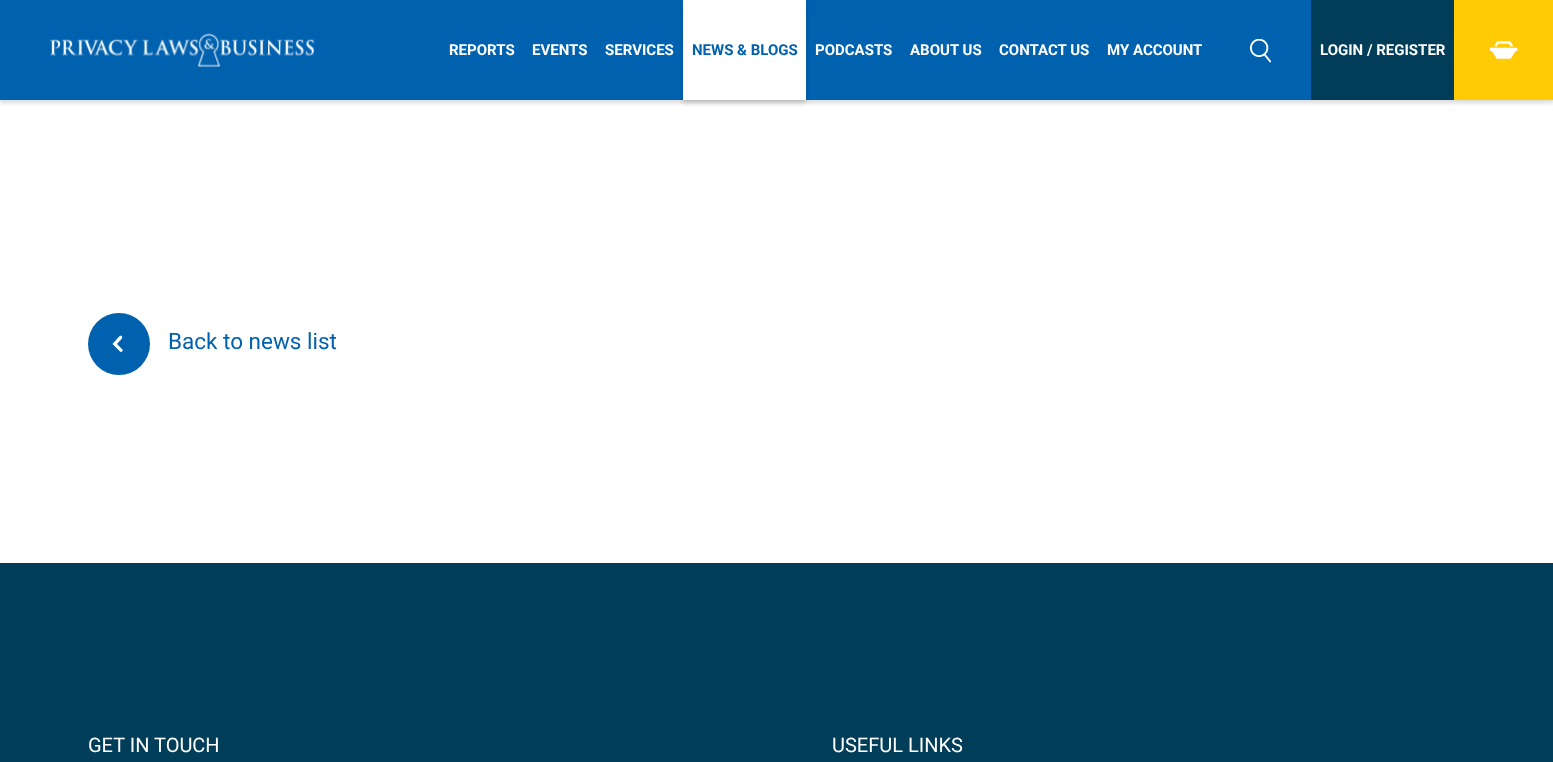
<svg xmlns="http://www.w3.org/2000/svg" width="1553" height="762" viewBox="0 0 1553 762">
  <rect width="100%" height="100%" fill="rgb(255,255,255)"/>
  <rect x="0" y="3" width="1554" height="100" fill="rgba(0,0,0,0.15)" filter="blur(2px)"/>
  <rect x="0" y="0" width="1311" height="100" fill="rgb(0,97,175)"/>
  <image x="50" y="33" width="264" height="34" href="pic1.png"/>
  <g font-family="Roboto" font-size="15" font-weight="bold" fill="rgb(255,255,255)">
    <text x="449" y="55">REPORTS</text>
    <text x="532" y="55">EVENTS</text>
    <text x="605" y="55">SERVICES</text>
  </g>
  <rect x="683" y="3" width="123" height="100" fill="rgba(0,0,0,0.15)" filter="blur(2px)"/>
  <rect x="683" y="0" width="123" height="100" fill="rgb(255,255,255)"/>
  <text x="692" y="55" font-family="Roboto" font-size="15" font-weight="bold" fill="rgb(0,97,175)">NEWS &amp; BLOGS</text>
  <g font-family="Roboto" font-size="15" font-weight="bold" fill="rgb(255,255,255)">
    <text x="815" y="55">PODCASTS</text>
    <text x="910" y="55">ABOUT US</text>
    <text x="999" y="55">CONTACT US</text>
    <text x="1107" y="55">MY ACCOUNT</text>
  </g>
  <image x="1250" y="39" width="21" height="24" href="pic2.png"/>
  <rect x="1311" y="0" width="143" height="100" fill="rgb(0,61,89)"/>
  <text x="1320" y="55" font-family="Roboto" font-size="15" font-weight="bold" fill="rgb(255,255,255)">LOGIN / REGISTER</text>
  <rect x="1454" y="0" width="99" height="100" fill="rgb(255,203,5)"/>
  <image x="1490" y="41" width="28" height="18" href="pic3.png"/>
  <circle cx="119" cy="344" r="31" fill="rgb(0,97,175)"/>
  <text x="168" y="349" font-family="Roboto" font-size="22.5" fill="rgb(0,97,175)">Back to news list</text>
  <path d="M116.5 339.5L112.5 344L120 351.5C120.5 352 121.5 352 122 351.5C123 351 123 350 122 349L117 344C118 342.5 123.5 338 122 336.5L121 335.5C119.5 335.5 117.5 338.5 116.5 339.5Z" fill="rgb(255,255,255)"/>
  <rect x="0" y="563" width="1553" height="199" fill="rgb(0,61,89)"/>
  <g font-family="Roboto" font-size="20" fill="rgb(255,255,255)">
    <text x="88" y="752">GET IN TOUCH</text>
    <text x="832" y="752">USEFUL LINKS</text>
  </g>
</svg>
